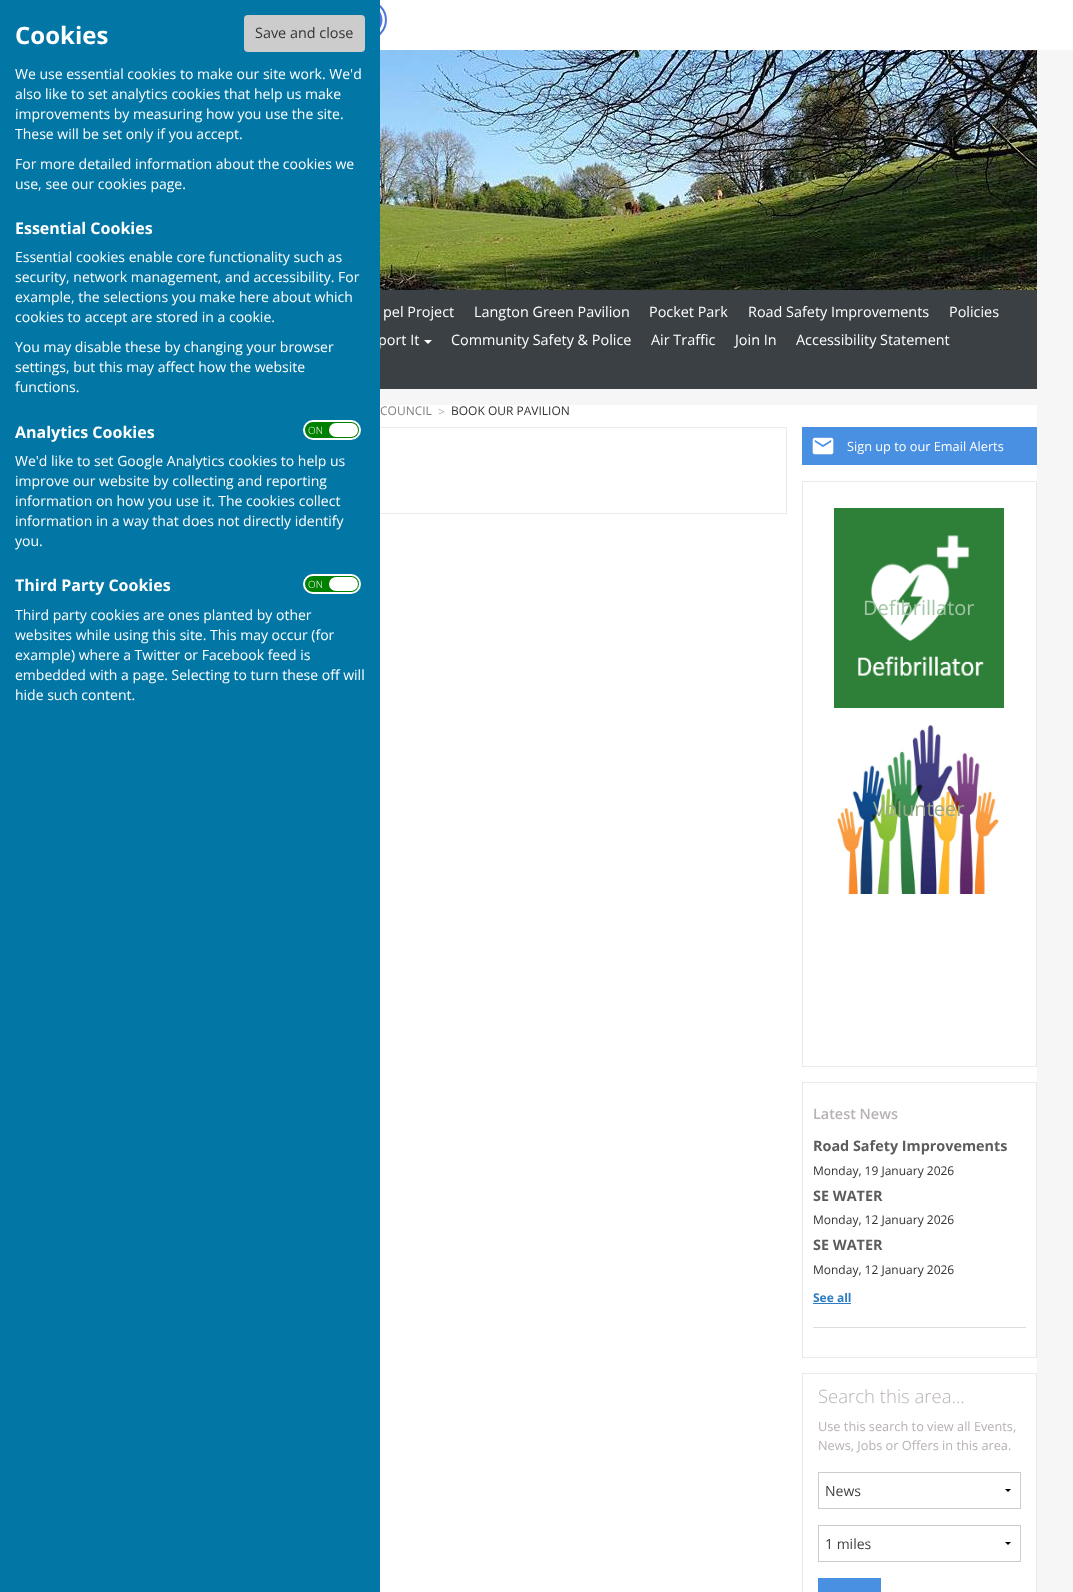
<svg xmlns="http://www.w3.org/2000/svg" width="1073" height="1592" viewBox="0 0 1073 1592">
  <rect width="100%" height="100%" fill="rgb(246,246,246)"/>
  <rect x="380" y="0" width="693" height="50" fill="rgb(255,255,255)"/>
  <circle cx="367" cy="20" r="20" fill="rgb(85,119,221)"/>
  <rect x="380" y="290" width="657" height="99" fill="rgb(59,64,68)"/>
  <text x="378" y="345" font-family="Open Sans" font-size="14.4" fill="rgb(255,255,255)">port It</text>
  <rect x="380" y="405" width="657" height="1187" fill="rgb(255,255,255)"/>
  <rect x="37.5" y="427.5" width="749" height="86" fill="none" stroke="rgb(234,234,234)"/>
  <rect x="0" y="0" width="380" height="1592" fill="rgb(2,118,165)"/>
  <text x="15" y="44" font-family="Open Sans" font-size="24" font-weight="bold" fill="rgb(255,255,255)">Cookies</text>
  <rect x="244" y="15" width="121" height="37" rx="4" fill="rgb(204,204,204)"/>
  <text x="255" y="38" font-family="Open Sans" font-size="14.4" fill="rgb(51,51,51)">Save and close</text>
  <g font-family="Open Sans" font-size="14" fill="rgb(255,255,255)">
    <text>
      <tspan x="15" y="79">We use essential cookies to make our site work. We'd</tspan>
      <tspan x="15" y="99">also like to set analytics cookies that help us make</tspan>
      <tspan x="15" y="119">improvements by measuring how you use the site.</tspan>
      <tspan x="15" y="139">These will be set only if you accept.</tspan>
    </text>
    <text>
      <tspan x="15" y="169">For more detailed information about the cookies we</tspan>
      <tspan x="15" y="189">use, see our cookies page.</tspan>
    </text>
  </g>
  <text x="15" y="234" font-family="Open Sans" font-size="16" font-weight="bold" fill="rgb(255,255,255)">Essential Cookies</text>
  <g font-family="Open Sans" font-size="14" fill="rgb(255,255,255)">
    <text>
      <tspan x="15" y="262">Essential cookies enable core functionality such as</tspan>
      <tspan x="15" y="282">security, network management, and accessibility. For</tspan>
      <tspan x="15" y="302">example, the selections you make here about which</tspan>
      <tspan x="15" y="322">cookies to accept are stored in a cookie.</tspan>
    </text>
    <text>
      <tspan x="15" y="352">You may disable these by changing your browser</tspan>
      <tspan x="15" y="372">settings, but this may affect how the website</tspan>
      <tspan x="15" y="392">functions.</tspan>
    </text>
  </g>
  <text x="15" y="438" font-family="Open Sans" font-size="16" font-weight="bold" fill="rgb(255,255,255)">Analytics Cookies</text>
  <rect x="304" y="421" width="56" height="18" rx="9" fill="rgb(0,128,0)" stroke="rgb(255,255,255)" stroke-width="2"/>
  <text x="308" y="434" font-family="Open Sans" font-size="10" font-weight="300" fill="rgb(255,255,255)">ON</text>
  <rect x="329" y="423" width="29" height="14" rx="7" fill="rgb(255,255,255)"/>
  <g font-family="Open Sans" font-size="14" fill="rgb(255,255,255)">
    <text>
      <tspan x="15" y="466">We'd like to set Google Analytics cookies to help us</tspan>
      <tspan x="15" y="486">improve our website by collecting and reporting</tspan>
      <tspan x="15" y="506">information on how you use it. The cookies collect</tspan>
      <tspan x="15" y="526">information in a way that does not directly identify</tspan>
      <tspan x="15" y="546">you.</tspan>
    </text>
  </g>
  <text x="15" y="591" font-family="Open Sans" font-size="16" font-weight="bold" fill="rgb(255,255,255)">Third Party Cookies</text>
  <rect x="304" y="575" width="56" height="18" rx="9" fill="rgb(0,128,0)" stroke="rgb(255,255,255)" stroke-width="2"/>
  <text x="308" y="588" font-family="Open Sans" font-size="10" font-weight="300" fill="rgb(255,255,255)">ON</text>
  <rect x="329" y="577" width="29" height="14" rx="7" fill="rgb(255,255,255)"/>
  <g font-family="Open Sans" font-size="14" fill="rgb(255,255,255)">
    <text>
      <tspan x="15" y="620">Third party cookies are ones planted by other</tspan>
      <tspan x="15" y="640">websites while using this site. This may occur (for</tspan>
      <tspan x="15" y="660">example) where a Twitter or Facebook feed is</tspan>
      <tspan x="15" y="680">embedded with a page. Selecting to turn these off will</tspan>
      <tspan x="15" y="700">hide such content.</tspan>
    </text>
  </g>
  <image x="380" y="7" width="5" height="26" href="pic1.png"/>
  <image x="380" y="50" width="657" height="240" href="pic2.png"/>
  <g font-family="Open Sans" font-size="14.4" fill="rgb(255,255,255)">
    <text x="383" y="317">pel Project</text>
    <text x="474" y="317">Langton Green Pavilion</text>
    <text x="649" y="317">Pocket Park</text>
    <text x="748" y="317">Road Safety Improvements</text>
    <text x="949" y="317">Policies</text>
  </g>
  <path d="M424 340H432L428 344Z" fill="rgb(255,255,255)"/>
  <g font-family="Open Sans" font-size="14.4" fill="rgb(255,255,255)">
    <text x="451" y="345">Community Safety &amp; Police</text>
    <text x="651" y="345">Air Traffic</text>
    <text x="735" y="345">Join In</text>
    <text x="796" y="345">Accessibility Statement</text>
  </g>
  <text x="380" y="415" font-family="Open Sans" font-size="12" fill="rgb(127,127,127)">COUNCIL</text>
  <text x="438" y="416" font-family="Open Sans" font-size="12" fill="rgb(170,170,170)">&gt;</text>
  <text x="451" y="415" font-family="Open Sans" font-size="12" fill="rgb(51,51,51)">BOOK OUR PAVILION</text>
  <rect x="802" y="427" width="235" height="38" fill="rgb(74,144,226)"/>
  <image x="812" y="437" width="22" height="18" href="pic3.png"/>
  <text x="847" y="451" font-family="Open Sans" font-size="12.75" fill="rgb(255,255,255)">Sign up to our Email Alerts</text>
  <rect x="802.5" y="481.5" width="234" height="585" fill="none" stroke="rgb(234,234,234)"/>
  <image x="834" y="508" width="170" height="200" href="pic4.png"/>
  <text x="863" y="615" font-family="Open Sans" font-size="20" fill="rgb(162,198,166)">Defibrillator</text>
  <image x="837" y="724" width="162" height="170" href="pic5.png"/>
  <text x="873" y="816" font-family="Open Sans" font-size="20" fill="rgb(156,169,135)">Volunteer</text>
  <rect x="802.5" y="1082.5" width="234" height="275" fill="none" stroke="rgb(234,234,234)"/>
  <text x="813" y="1119" font-family="Open Sans" font-size="14.4" font-weight="600" fill="rgb(185,178,178)">Latest News</text>
  <text x="813" y="1151" font-family="Open Sans" font-size="14.4" font-weight="bold" fill="rgb(92,92,92)">Road Safety Improvements</text>
  <text x="813" y="1175" font-family="Open Sans" font-size="12" fill="rgb(51,51,51)">Monday, 19 January 2026</text>
  <text x="813" y="1201" font-family="Open Sans" font-size="14.4" font-weight="bold" fill="rgb(92,92,92)">SE WATER</text>
  <text x="813" y="1224" font-family="Open Sans" font-size="12" fill="rgb(51,51,51)">Monday, 12 January 2026</text>
  <text x="813" y="1250" font-family="Open Sans" font-size="14.4" font-weight="bold" fill="rgb(92,92,92)">SE WATER</text>
  <text x="813" y="1274" font-family="Open Sans" font-size="12" fill="rgb(51,51,51)">Monday, 12 January 2026</text>
  <text x="813" y="1302" font-family="Open Sans" font-size="12" font-weight="bold" fill="rgb(45,125,194)">See all</text>
  <rect x="813" y="1303" width="38" height="1" fill="rgb(45,125,194)"/>
  <rect x="813" y="1327" width="213" height="1" fill="rgb(221,221,221)"/>
  <rect x="802.5" y="1373.5" width="234" height="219" fill="none" stroke="rgb(234,234,234)"/>
  <text x="818" y="1403" font-family="Open Sans" font-size="18.5" font-weight="300" fill="rgb(185,178,178)">Search this area…</text>
  <g font-family="Open Sans" font-size="12.75" fill="rgb(185,178,178)">
    <text>
      <tspan x="818" y="1431">Use this search to view all Events,</tspan>
      <tspan x="818" y="1450">News, Jobs or Offers in this area.</tspan>
    </text>
  </g>
  <path d="M1011 1489L1008 1492L1005 1489Z" fill="rgb(0,0,0)"/>
  <rect x="818.5" y="1472.5" width="202" height="36" fill="none" stroke="rgb(204,204,204)"/>
  <text x="825" y="1496" font-family="Open Sans" font-size="14" fill="rgb(64,64,64)">News</text>
  <path d="M1011 1542L1008 1545L1005 1542Z" fill="rgb(0,0,0)"/>
  <rect x="818.5" y="1525.5" width="202" height="36" fill="none" stroke="rgb(204,204,204)"/>
  <text x="825" y="1549" font-family="Open Sans" font-size="14" fill="rgb(64,64,64)">1 miles</text>
  <rect x="818" y="1578" width="63" height="14" fill="rgb(74,144,226)"/>
</svg>
